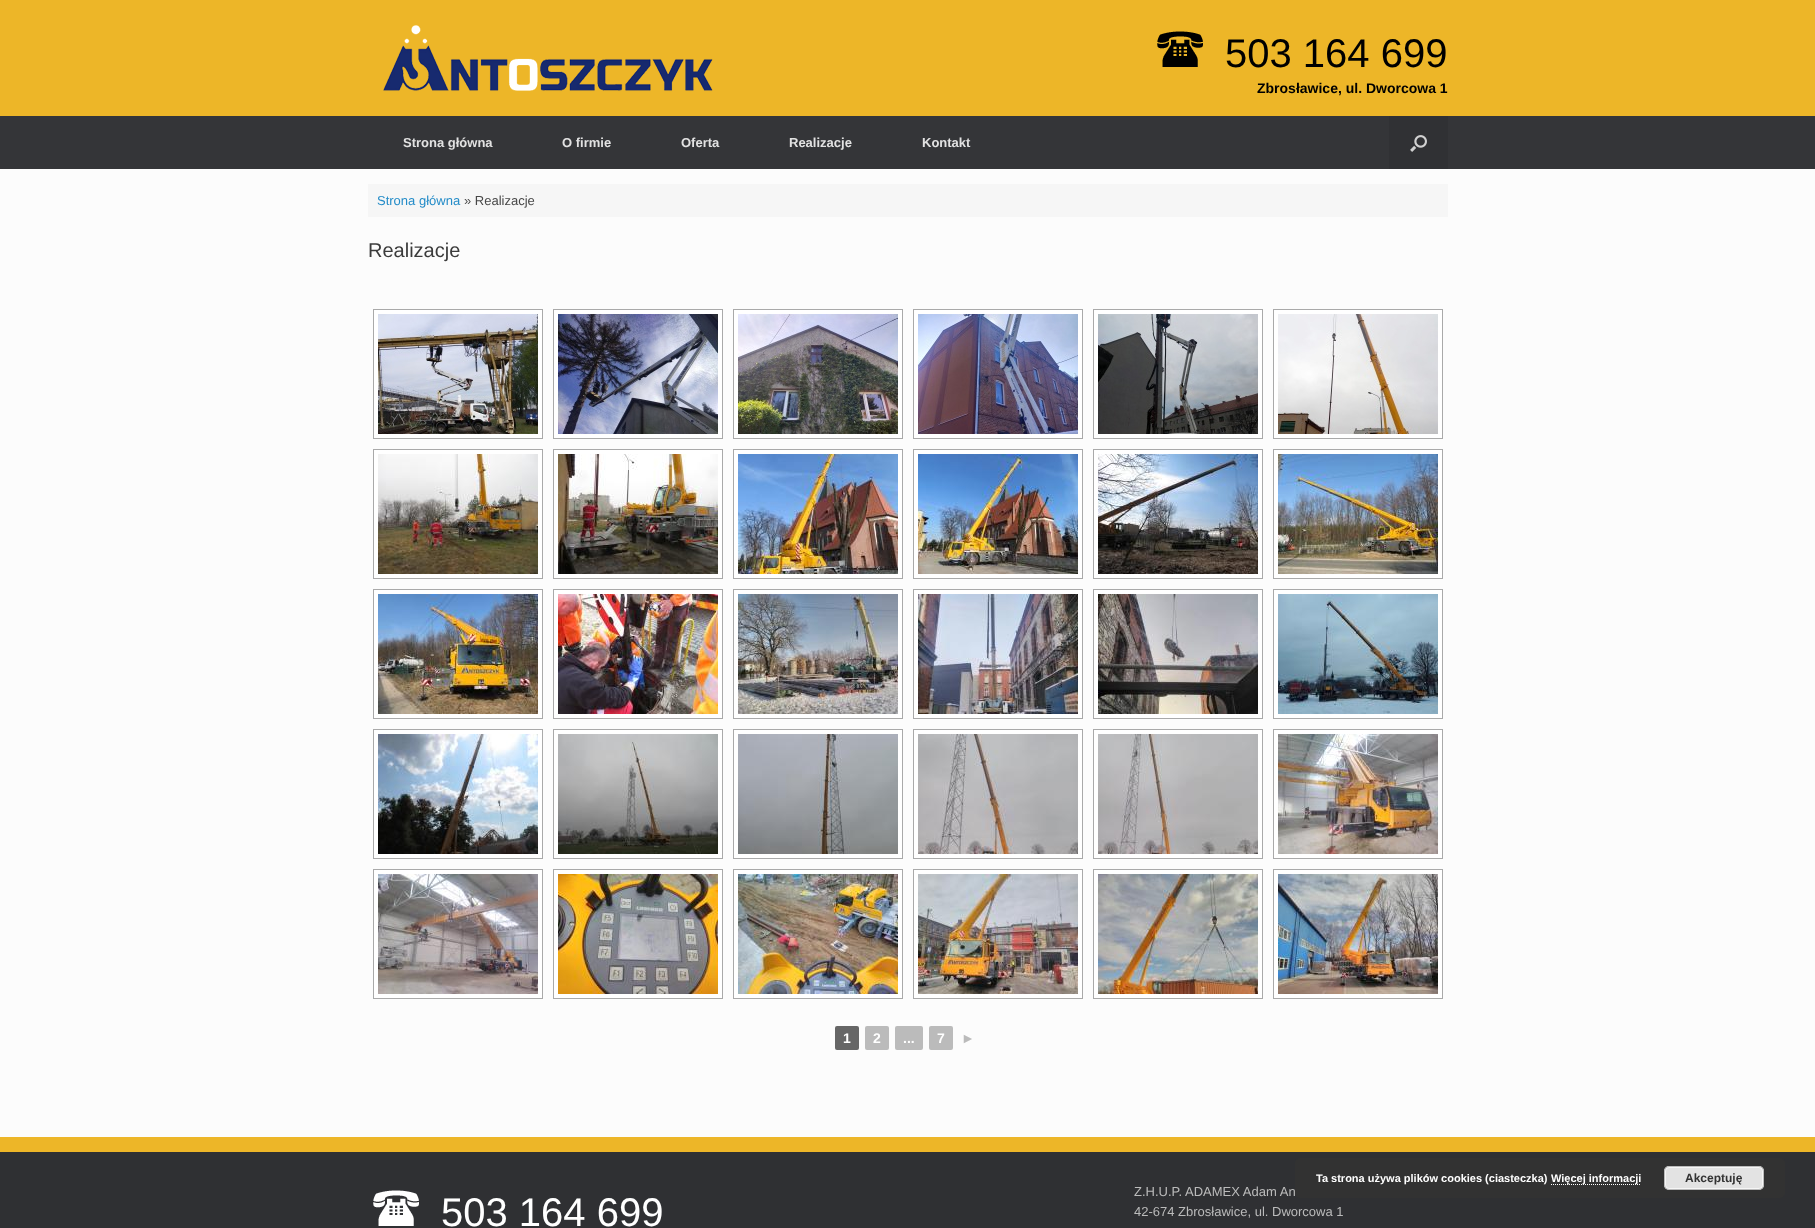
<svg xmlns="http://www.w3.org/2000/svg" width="1815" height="1228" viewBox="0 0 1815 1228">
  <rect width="100%" height="100%" fill="rgb(47,48,51)"/>
  <rect x="0" y="0" width="1815" height="116" fill="rgb(237,182,40)"/>
  <image x="383" y="25" width="330" height="66" href="pic1.png"/>
  <image x="1157" y="31" width="46" height="36" href="pic2.png"/>
  <text x="1225" y="67" font-family="Liberation Sans" font-size="40" fill="rgb(0,0,0)">503 164 699</text>
  <text x="1257" y="93" font-family="Liberation Sans" font-size="14" font-weight="bold" fill="rgb(0,0,0)">Zbrosławice, ul. Dworcowa 1</text>
  <rect x="0" y="116" width="1815" height="53" fill="rgb(52,53,56)"/>
  <g font-family="Liberation Sans" font-size="13" font-weight="bold" fill="rgb(226,226,226)">
    <text x="403" y="147">Strona główna</text>
    <text x="562" y="147">O firmie</text>
    <text x="681" y="147">Oferta</text>
    <text x="789" y="147">Realizacje</text>
    <text x="922" y="147">Kontakt</text>
  </g>
  <rect x="1389" y="116" width="59" height="53" fill="rgb(48,49,52)"/>
  <image x="1410" y="135" width="17" height="17" href="pic3.png"/>
  <rect x="0" y="169" width="1815" height="968" fill="rgb(252,252,252)"/>
  <rect x="0" y="1137" width="1815" height="15" fill="rgb(237,182,40)"/>
  <rect x="368" y="184" width="1080" height="33" fill="rgb(246,246,246)"/>
  <text x="377" y="205" font-family="Liberation Sans" font-size="13" fill="rgb(36,140,200)">Strona główna</text>
  <text x="464" y="205" font-family="Liberation Sans" font-size="13" fill="rgb(71,71,71)">» Realizacje</text>
  <text x="368" y="257" font-family="Liberation Sans" font-size="20" fill="rgb(59,59,59)">Realizacje</text>
  <rect x="373.5" y="309.5" width="169" height="129" fill="rgb(255,255,255)" stroke="rgb(169,169,169)"/>
  <image x="378" y="314" width="160" height="120" href="pic4.png"/>
  <rect x="553.5" y="309.5" width="169" height="129" fill="rgb(255,255,255)" stroke="rgb(169,169,169)"/>
  <image x="558" y="314" width="160" height="120" href="pic5.png"/>
  <rect x="733.5" y="309.5" width="169" height="129" fill="rgb(255,255,255)" stroke="rgb(169,169,169)"/>
  <image x="738" y="314" width="160" height="120" href="pic6.png"/>
  <rect x="913.5" y="309.5" width="169" height="129" fill="rgb(255,255,255)" stroke="rgb(169,169,169)"/>
  <image x="918" y="314" width="160" height="120" href="pic7.png"/>
  <rect x="1093.5" y="309.5" width="169" height="129" fill="rgb(255,255,255)" stroke="rgb(169,169,169)"/>
  <image x="1098" y="314" width="160" height="120" href="pic8.png"/>
  <rect x="1273.5" y="309.5" width="169" height="129" fill="rgb(255,255,255)" stroke="rgb(169,169,169)"/>
  <image x="1278" y="314" width="160" height="120" href="pic9.png"/>
  <rect x="373.5" y="449.5" width="169" height="129" fill="rgb(255,255,255)" stroke="rgb(169,169,169)"/>
  <image x="378" y="454" width="160" height="120" href="pic10.png"/>
  <rect x="553.5" y="449.5" width="169" height="129" fill="rgb(255,255,255)" stroke="rgb(169,169,169)"/>
  <image x="558" y="454" width="160" height="120" href="pic11.png"/>
  <rect x="733.5" y="449.5" width="169" height="129" fill="rgb(255,255,255)" stroke="rgb(169,169,169)"/>
  <image x="738" y="454" width="160" height="120" href="pic12.png"/>
  <rect x="913.5" y="449.5" width="169" height="129" fill="rgb(255,255,255)" stroke="rgb(169,169,169)"/>
  <image x="918" y="454" width="160" height="120" href="pic13.png"/>
  <rect x="1093.5" y="449.5" width="169" height="129" fill="rgb(255,255,255)" stroke="rgb(169,169,169)"/>
  <image x="1098" y="454" width="160" height="120" href="pic14.png"/>
  <rect x="1273.5" y="449.5" width="169" height="129" fill="rgb(255,255,255)" stroke="rgb(169,169,169)"/>
  <image x="1278" y="454" width="160" height="120" href="pic15.png"/>
  <rect x="373.5" y="589.5" width="169" height="129" fill="rgb(255,255,255)" stroke="rgb(169,169,169)"/>
  <image x="378" y="594" width="160" height="120" href="pic16.png"/>
  <rect x="553.5" y="589.5" width="169" height="129" fill="rgb(255,255,255)" stroke="rgb(169,169,169)"/>
  <image x="558" y="594" width="160" height="120" href="pic17.png"/>
  <rect x="733.5" y="589.5" width="169" height="129" fill="rgb(255,255,255)" stroke="rgb(169,169,169)"/>
  <image x="738" y="594" width="160" height="120" href="pic18.png"/>
  <rect x="913.5" y="589.5" width="169" height="129" fill="rgb(255,255,255)" stroke="rgb(169,169,169)"/>
  <image x="918" y="594" width="160" height="120" href="pic19.png"/>
  <rect x="1093.5" y="589.5" width="169" height="129" fill="rgb(255,255,255)" stroke="rgb(169,169,169)"/>
  <image x="1098" y="594" width="160" height="120" href="pic20.png"/>
  <rect x="1273.5" y="589.5" width="169" height="129" fill="rgb(255,255,255)" stroke="rgb(169,169,169)"/>
  <image x="1278" y="594" width="160" height="120" href="pic21.png"/>
  <rect x="373.5" y="729.5" width="169" height="129" fill="rgb(255,255,255)" stroke="rgb(169,169,169)"/>
  <image x="378" y="734" width="160" height="120" href="pic22.png"/>
  <rect x="553.5" y="729.5" width="169" height="129" fill="rgb(255,255,255)" stroke="rgb(169,169,169)"/>
  <image x="558" y="734" width="160" height="120" href="pic23.png"/>
  <rect x="733.5" y="729.5" width="169" height="129" fill="rgb(255,255,255)" stroke="rgb(169,169,169)"/>
  <image x="738" y="734" width="160" height="120" href="pic24.png"/>
  <rect x="913.5" y="729.5" width="169" height="129" fill="rgb(255,255,255)" stroke="rgb(169,169,169)"/>
  <image x="918" y="734" width="160" height="120" href="pic25.png"/>
  <rect x="1093.5" y="729.5" width="169" height="129" fill="rgb(255,255,255)" stroke="rgb(169,169,169)"/>
  <image x="1098" y="734" width="160" height="120" href="pic26.png"/>
  <rect x="1273.5" y="729.5" width="169" height="129" fill="rgb(255,255,255)" stroke="rgb(169,169,169)"/>
  <image x="1278" y="734" width="160" height="120" href="pic27.png"/>
  <rect x="373.5" y="869.5" width="169" height="129" fill="rgb(255,255,255)" stroke="rgb(169,169,169)"/>
  <image x="378" y="874" width="160" height="120" href="pic28.png"/>
  <rect x="553.5" y="869.5" width="169" height="129" fill="rgb(255,255,255)" stroke="rgb(169,169,169)"/>
  <image x="558" y="874" width="160" height="120" href="pic29.png"/>
  <rect x="733.5" y="869.5" width="169" height="129" fill="rgb(255,255,255)" stroke="rgb(169,169,169)"/>
  <image x="738" y="874" width="160" height="120" href="pic30.png"/>
  <rect x="913.5" y="869.5" width="169" height="129" fill="rgb(255,255,255)" stroke="rgb(169,169,169)"/>
  <image x="918" y="874" width="160" height="120" href="pic31.png"/>
  <rect x="1093.5" y="869.5" width="169" height="129" fill="rgb(255,255,255)" stroke="rgb(169,169,169)"/>
  <image x="1098" y="874" width="160" height="120" href="pic32.png"/>
  <rect x="1273.5" y="869.5" width="169" height="129" fill="rgb(255,255,255)" stroke="rgb(169,169,169)"/>
  <image x="1278" y="874" width="160" height="120" href="pic33.png"/>
  <rect x="835" y="1026" width="24" height="24" rx="2" fill="rgb(102,102,102)"/>
  <text x="843" y="1043" font-family="Liberation Sans" font-size="14" font-weight="bold" fill="rgb(255,255,255)">1</text>
  <rect x="865" y="1026" width="24" height="24" rx="2" fill="rgb(187,187,187)"/>
  <text x="873" y="1043" font-family="Liberation Sans" font-size="14" font-weight="bold" fill="rgb(255,255,255)">2</text>
  <rect x="895" y="1026" width="28" height="24" rx="2" fill="rgb(187,187,187)"/>
  <text x="903" y="1043" font-family="Liberation Sans" font-size="14" font-weight="bold" fill="rgb(255,255,255)">...</text>
  <rect x="929" y="1026" width="24" height="24" rx="2" fill="rgb(187,187,187)"/>
  <text x="937" y="1043" font-family="Liberation Sans" font-size="14" font-weight="bold" fill="rgb(255,255,255)">7</text>
  <text x="961" y="1043" font-family="Liberation Sans" font-size="14" font-weight="bold" fill="rgb(187,187,187)">►</text>
  <image x="373" y="1190" width="46" height="36" href="pic34.png"/>
  <text x="441" y="1226" font-family="Liberation Sans" font-size="40" fill="rgb(255,255,255)">503 164 699</text>
  <g font-family="Liberation Sans" font-size="13" fill="rgb(187,187,187)">
    <text>
      <tspan x="1134" y="1196">Z.H.U.P. ADAMEX Adam An</tspan>
      <tspan x="1134" y="1216">42-674 Zbrosławice, ul. Dworcowa 1</tspan>
    </text>
  </g>
  <rect x="1295" y="1158" width="490" height="40" rx="5" fill="rgba(51,51,51,0.85)"/>
  <text x="1316" y="1182" font-family="Liberation Sans" font-size="11" font-weight="bold" fill="rgb(255,255,255)">Ta strona używa plików cookies (ciasteczka)</text>
  <path d="M1551 1184.5H1641" fill="none" stroke="rgb(255,255,255)" stroke-dasharray="1 1"/>
  <text x="1551" y="1182" font-family="Liberation Sans" font-size="11" font-weight="bold" fill="rgb(255,255,255)">Więcej informacji</text>
  <rect x="1664" y="1166" width="100" height="24" rx="5" fill="rgb(227,227,227)"/>
  <rect x="1665.5" y="1167.5" width="97" height="21" rx="3.5" fill="none" stroke="rgb(246,246,246)"/>
  <rect x="1664.5" y="1166.5" width="99" height="23" rx="4.5" fill="none" stroke="rgb(187,187,187)"/>
  <text x="1685" y="1182" font-family="Liberation Sans" font-size="12" font-weight="bold" fill="rgb(51,51,51)">Akceptuję</text>
</svg>
